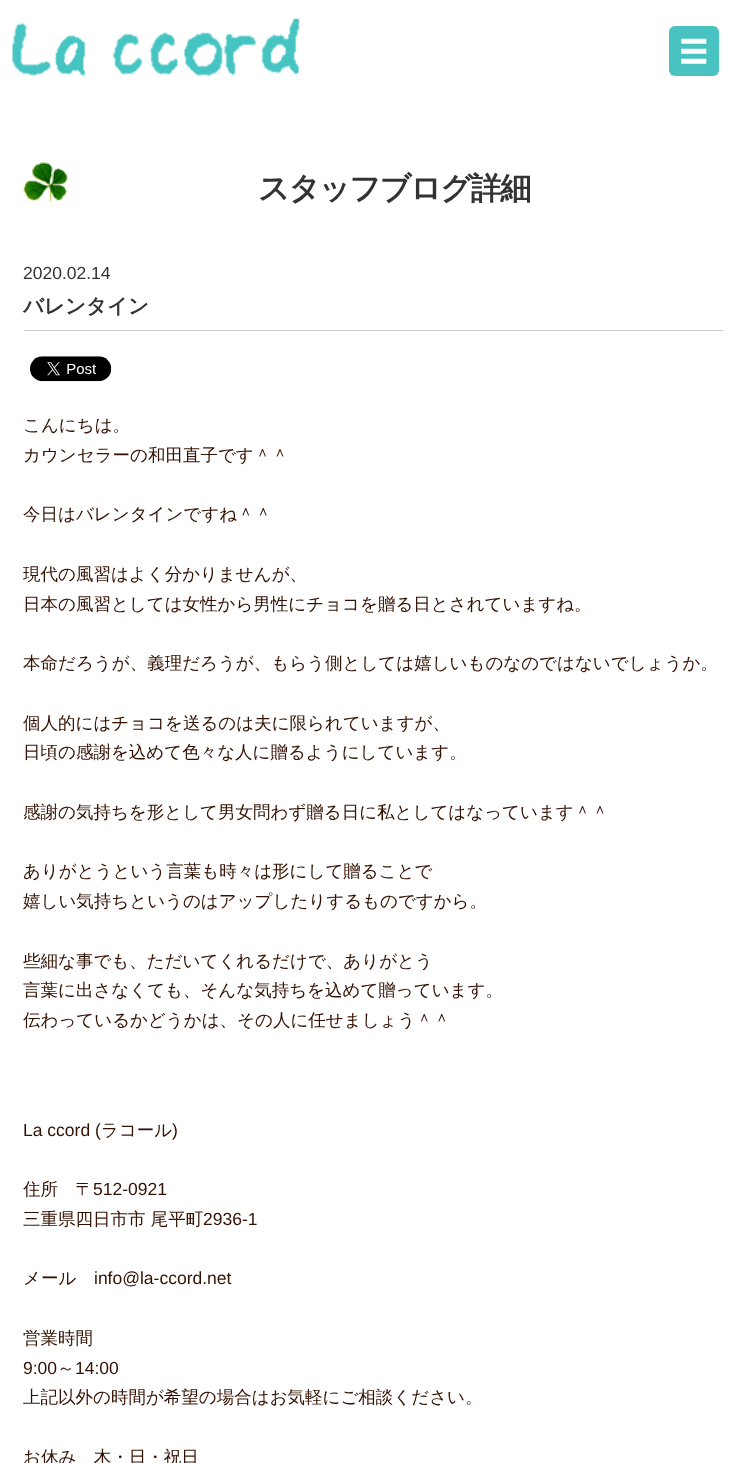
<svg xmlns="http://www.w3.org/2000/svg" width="746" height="1463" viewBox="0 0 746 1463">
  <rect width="100%" height="100%" fill="rgb(255,255,255)"/>
  <image x="12" y="18" width="288" height="59" href="pic1.png"/>
  <rect x="669" y="26" width="50" height="50" rx="6" fill="rgb(72,195,193)"/>
  <image x="681" y="38" width="26" height="26" href="pic2.png"/>
  <image x="23" y="162" width="45" height="41" href="pic3.png"/>
  <text x="258" y="199" font-family="WenQuanYi Zen Hei" font-size="31.25" font-weight="bold" letter-spacing="-1.6" fill="rgb(51,51,51)">スタッフブログ詳細</text>
  <rect x="24" y="330" width="699" height="1" fill="rgb(204,204,204)"/>
  <text x="23" y="279" font-family="Liberation Sans" font-size="17.5" fill="rgb(51,51,51)">2020.02.14</text>
  <text x="23" y="313" font-family="WenQuanYi Zen Hei" font-size="20.5" font-weight="bold" fill="rgb(51,51,51)">バレンタイン</text>
  <image x="30" y="356" width="82" height="26" href="pic4.png"/>
  <g font-family="WenQuanYi Zen Hei" font-size="17.5" font-weight="500" fill="rgb(51,17,2)">
    <text>
      <tspan x="23" y="431">こんにちは。</tspan>
      <tspan x="23" y="461">カウンセラーの和田直子です＾＾</tspan>
    </text>
    <text x="23" y="520">今日はバレンタインですね＾＾</text>
    <text>
      <tspan x="23" y="580">現代の風習はよく分かりませんが、</tspan>
      <tspan x="23" y="610">日本の風習としては女性から男性にチョコを贈る日とされていますね。</tspan>
    </text>
    <text x="23" y="669">本命だろうが、義理だろうが、もらう側としては嬉しいものなのではないでしょうか。</text>
    <text>
      <tspan x="23" y="729">個人的にはチョコを送るのは夫に限られていますが、</tspan>
      <tspan x="23" y="758">日頃の感謝を込めて色々な人に贈るようにしています。</tspan>
    </text>
    <text x="23" y="818">感謝の気持ちを形として男女問わず贈る日に私としてはなっています＾＾</text>
    <text>
      <tspan x="23" y="877">ありがとうという言葉も時々は形にして贈ることで</tspan>
      <tspan x="23" y="907">嬉しい気持ちというのはアップしたりするものですから。</tspan>
    </text>
    <text>
      <tspan x="23" y="967">些細な事でも、ただいてくれるだけで、ありがとう</tspan>
      <tspan x="23" y="996">言葉に出さなくても、そんな気持ちを込めて贈っています。</tspan>
      <tspan x="23" y="1026">伝わっているかどうかは、その人に任せましょう＾＾</tspan>
    </text>
  </g>
  <text x="23" y="1136" font-family="Liberation Sans" font-size="17.5" fill="rgb(51,17,2)">La ccord (</text>
  <text x="101" y="1136" font-family="WenQuanYi Zen Hei" font-size="17.5" font-weight="500" fill="rgb(51,17,2)">ラコール</text>
  <text x="172" y="1136" font-family="Liberation Sans" font-size="17.5" fill="rgb(51,17,2)">)</text>
  <text x="23" y="1195" font-family="WenQuanYi Zen Hei" font-size="17.5" font-weight="500" fill="rgb(51,17,2)">住所　〒</text>
  <text x="93" y="1195" font-family="Liberation Sans" font-size="17.5" fill="rgb(51,17,2)">512-0921</text>
  <text x="23" y="1225" font-family="WenQuanYi Zen Hei" font-size="17.5" font-weight="500" fill="rgb(51,17,2)">三重県四日市市 尾平町</text>
  <text x="203" y="1225" font-family="Liberation Sans" font-size="17.5" fill="rgb(51,17,2)">2936-1</text>
  <text x="23" y="1284" font-family="WenQuanYi Zen Hei" font-size="17.5" font-weight="500" fill="rgb(51,17,2)">メール</text>
  <text x="94" y="1284" font-family="Liberation Sans" font-size="17.5" fill="rgb(51,17,2)">info@la-ccord.net</text>
  <text x="23" y="1344" font-family="WenQuanYi Zen Hei" font-size="17.5" font-weight="500" fill="rgb(51,17,2)">営業時間</text>
  <text x="23" y="1374" font-family="Liberation Sans" font-size="17.5" fill="rgb(51,17,2)">9:00</text>
  <text x="57" y="1374" font-family="WenQuanYi Zen Hei" font-size="17.5" font-weight="500" fill="rgb(51,17,2)">～</text>
  <text x="75" y="1374" font-family="Liberation Sans" font-size="17.5" fill="rgb(51,17,2)">14:00</text>
  <g font-family="WenQuanYi Zen Hei" font-size="17.5" font-weight="500" fill="rgb(51,17,2)">
    <text x="23" y="1403">上記以外の時間が希望の場合はお気軽にご相談ください。</text>
    <text x="23" y="1463">お休み　木・日・祝日</text>
  </g>
</svg>
